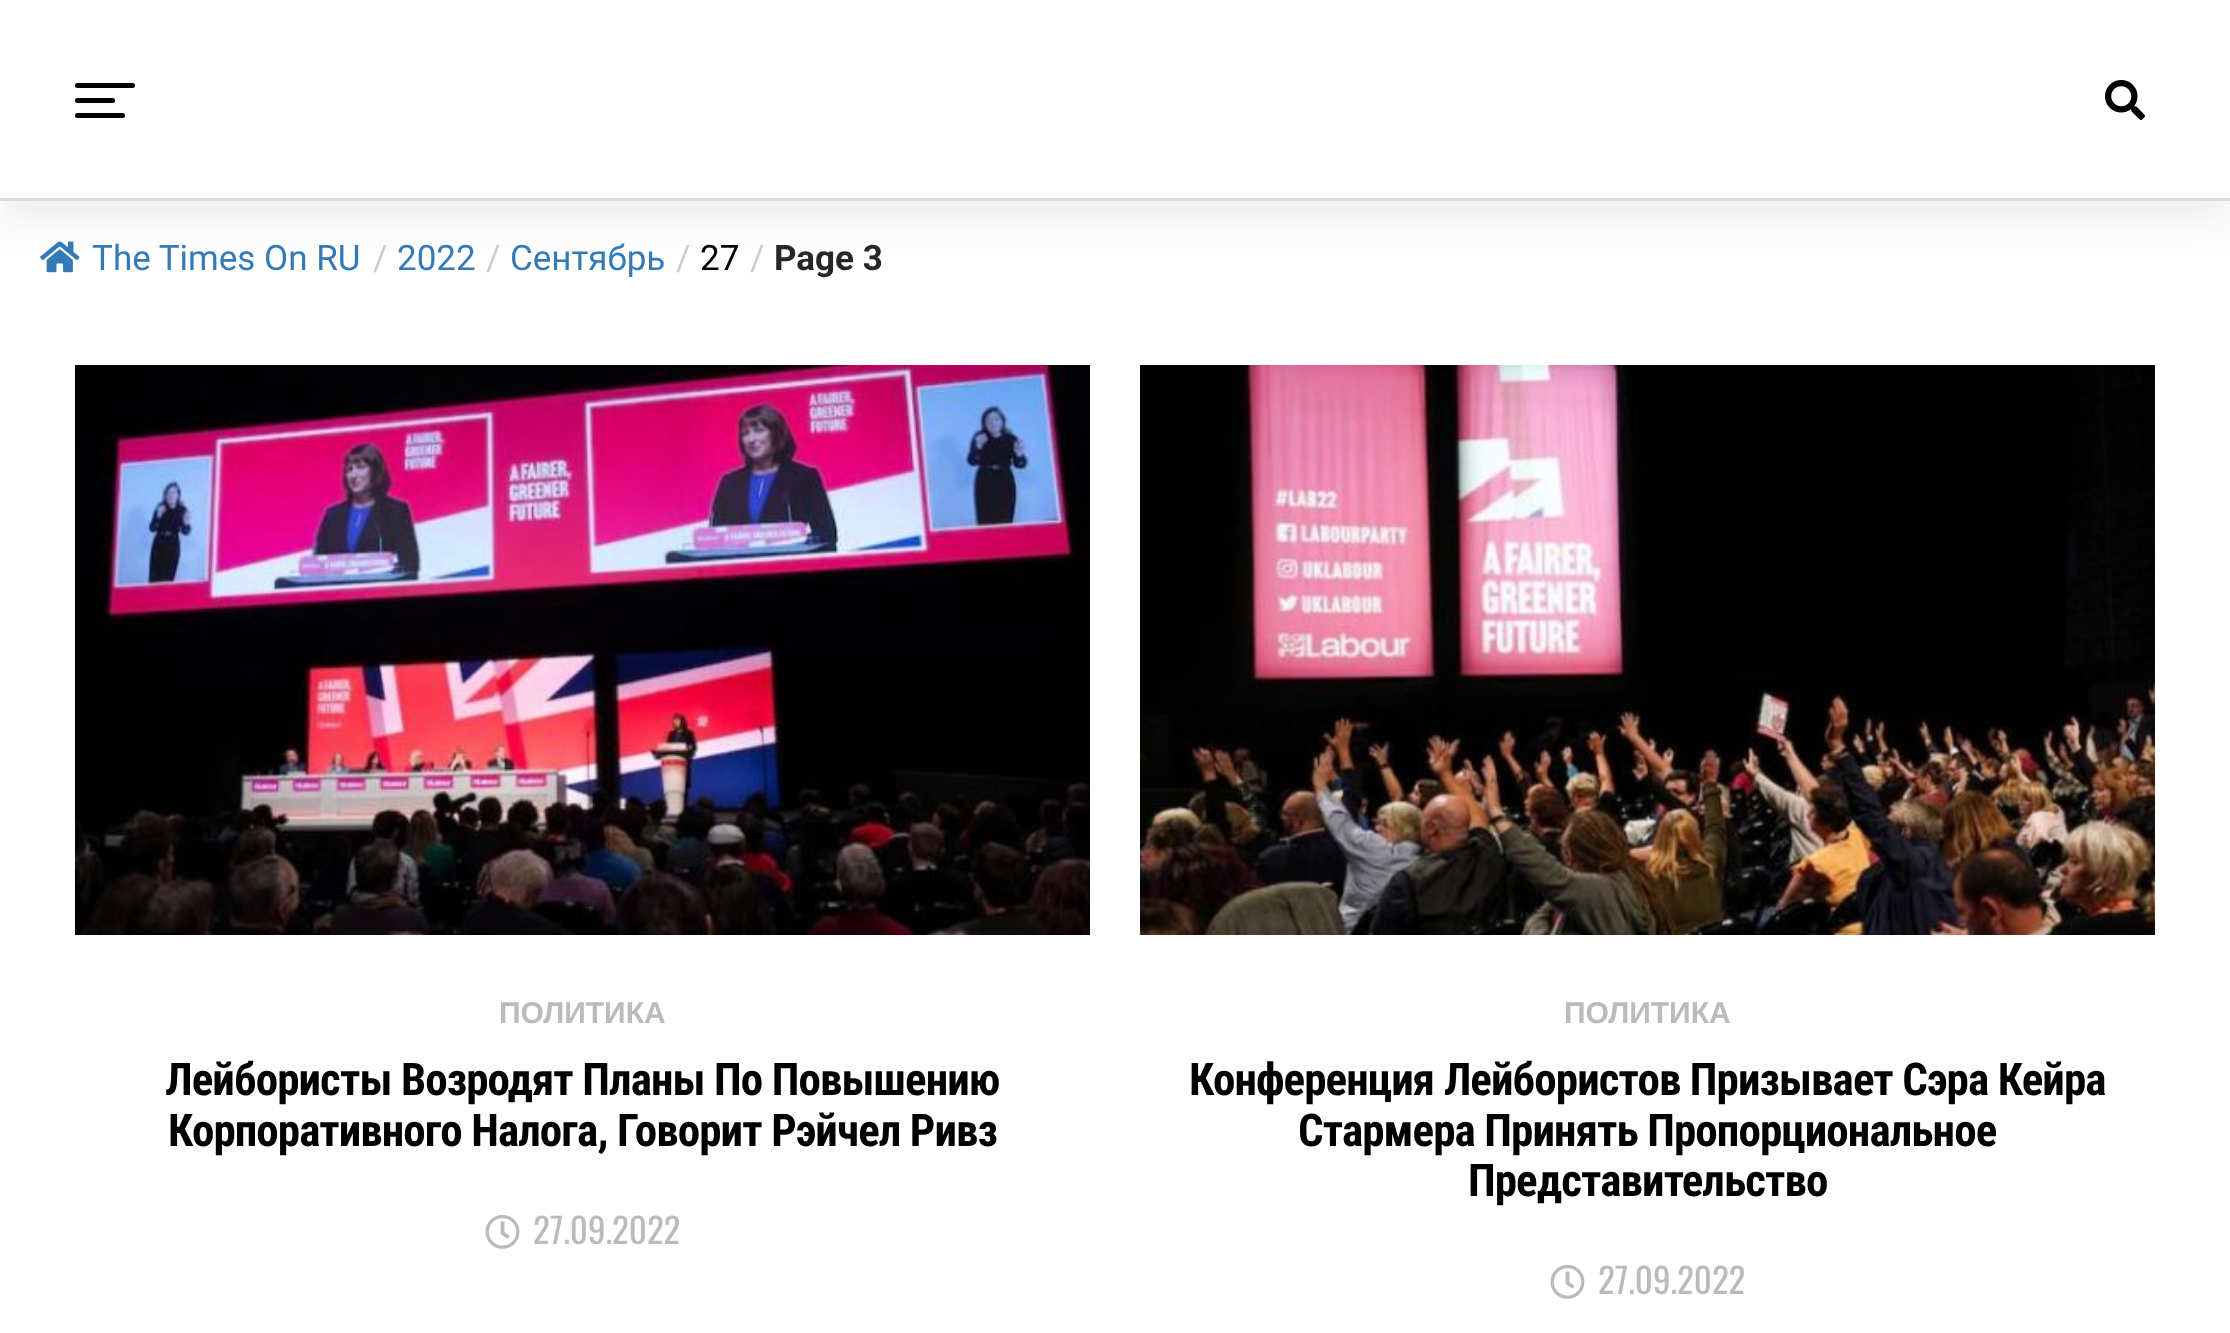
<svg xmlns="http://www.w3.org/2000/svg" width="2230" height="1333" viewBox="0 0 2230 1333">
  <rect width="100%" height="100%" fill="rgb(255,255,255)"/>
  <image x="40" y="241" width="40" height="32" href="pic2.png"/>
  <rect x="0" y="20" width="2230" height="200" fill="rgba(21,21,30,0.08)" filter="blur(20px)"/>
  <rect x="0" y="0" width="2230" height="198" fill="rgb(255,255,255)"/>
  <rect x="0" y="198" width="2230" height="3" fill="rgb(221,221,221)"/>
  <rect x="75" y="83" width="60" height="5" rx="2.5" fill="rgb(0,0,0)"/>
  <rect x="75" y="98" width="40" height="5" rx="2.5" fill="rgb(0,0,0)"/>
  <rect x="75" y="113" width="50" height="5" rx="2.5" fill="rgb(0,0,0)"/>
  <image x="2105" y="80" width="40" height="40" href="pic1.png"/>
  <text x="92" y="270" font-family="Roboto" font-size="35" fill="rgb(51,122,183)">The Times On RU</text>
  <text x="373" y="270" font-family="Roboto" font-size="35" fill="rgb(204,204,204)">/</text>
  <text x="397" y="270" font-family="Roboto" font-size="35" fill="rgb(51,122,183)">2022</text>
  <text x="486" y="270" font-family="Roboto" font-size="35" fill="rgb(204,204,204)">/</text>
  <text x="510" y="270" font-family="Roboto" font-size="35" fill="rgb(51,122,183)">Сентябрь</text>
  <text x="676" y="270" font-family="Roboto" font-size="35" fill="rgb(204,204,204)">/</text>
  <text x="700" y="270" font-family="Roboto" font-size="35" fill="rgb(0,0,0)">27</text>
  <text x="750" y="270" font-family="Roboto" font-size="35" fill="rgb(204,204,204)">/</text>
  <text x="774" y="270" font-family="Roboto" font-size="35" font-weight="bold" fill="rgb(39,39,42)">Page 3</text>
  <image x="75" y="365" width="1015" height="570" href="pic3.png"/>
  <text x="499" y="1023" font-family="Liberation Sans" font-size="30" font-weight="bold" fill="rgb(187,187,187)">ПОЛИТИКА</text>
  <g font-family="Roboto Condensed" font-size="45" font-weight="bold" letter-spacing="-0.9" fill="rgb(0,0,0)">
    <text x="165" y="1095">Лейбористы Возродят Планы По Повышению</text>
    <text x="168" y="1146">Корпоративного Налога, Говорит Рэйчел Ривз</text>
  </g>
  <image x="485" y="1214" width="35" height="35" href="pic4.png"/>
  <text x="533" y="1244" font-family="Oswald" font-size="35" fill="rgb(187,187,187)">27.09.2022</text>
  <image x="1140" y="365" width="1015" height="570" href="pic5.png"/>
  <text x="1564" y="1023" font-family="Liberation Sans" font-size="30" font-weight="bold" fill="rgb(187,187,187)">ПОЛИТИКА</text>
  <g font-family="Roboto Condensed" font-size="45" font-weight="bold" letter-spacing="-0.9" fill="rgb(0,0,0)">
    <text x="1189" y="1095">Конференция Лейбористов Призывает Сэра Кейра</text>
    <text x="1298" y="1146">Стармера Принять Пропорциональное</text>
    <text x="1468" y="1196">Представительство</text>
  </g>
  <image x="1550" y="1264" width="35" height="35" href="pic4.png"/>
  <text x="1598" y="1294" font-family="Oswald" font-size="35" fill="rgb(187,187,187)">27.09.2022</text>
</svg>
